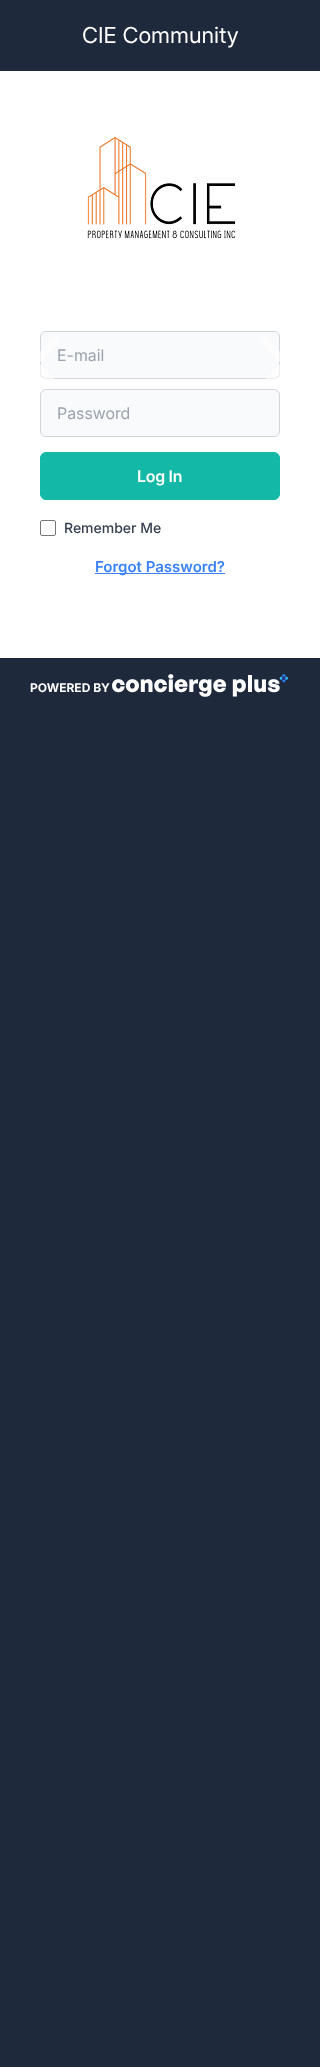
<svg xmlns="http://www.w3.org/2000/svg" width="320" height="2067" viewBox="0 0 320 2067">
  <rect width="100%" height="100%" fill="rgb(30,41,59)"/>
  <text x="82" y="43" font-family="Inter" font-size="22" fill="rgb(255,255,255)">CIE Community</text>
  <rect x="0" y="71" width="320" height="587" fill="rgb(255,255,255)"/>
  <rect x="40.5" y="331.5" width="239" height="47" rx="5.5" fill="rgb(249,250,251)" stroke="rgb(209,213,219)"/>
  <text x="57" y="361" font-family="'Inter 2'" font-size="16" fill="rgb(156,163,175)">E-mail</text>
  <rect x="40.5" y="389.5" width="239" height="47" rx="5.5" fill="rgb(249,250,251)" stroke="rgb(209,213,219)"/>
  <path d="M56 385.5L34 363L56 340.5" fill="none" stroke="rgba(255,255,255,0.6)" stroke-width="7.5" stroke-linecap="round" stroke-linejoin="round"/>
  <image x="87" y="137" width="149" height="102" href="pic1.png"/>
  <text x="57" y="419" font-family="'Inter 2'" font-size="16" fill="rgb(156,163,175)">Password</text>
  <rect x="40.5" y="452.5" width="239" height="47" rx="5.5" fill="rgb(20,184,166)" stroke="rgb(20,184,166)"/>
  <text x="137" y="482" font-family="'Inter 2'" font-size="16" font-weight="600" letter-spacing="-0.25" fill="rgb(255,255,255)">Log In</text>
  <rect x="40.5" y="520.5" width="15" height="15" rx="1.5" fill="none" stroke="rgb(118,118,118)"/>
  <text x="64" y="533" font-family="Inter" font-size="14" font-weight="500" fill="rgb(55,65,81)">Remember Me</text>
  <rect x="95" y="573" width="130" height="1" fill="rgb(59,130,246)"/>
  <text x="95" y="572" font-family="Inter" font-size="15" font-weight="600" fill="rgb(59,130,246)">Forgot Password?</text>
  <path d="M264 385.5L286 363L264 340.5" fill="none" stroke="rgba(255,255,255,0.6)" stroke-width="7.5" stroke-linecap="round" stroke-linejoin="round"/>
  <text x="30" y="692" font-family="Inter" font-size="12" font-weight="bold" fill="rgb(255,255,255)">POWERED BY</text>
  <image x="112" y="674" width="176" height="23" href="pic2.png"/>
</svg>
